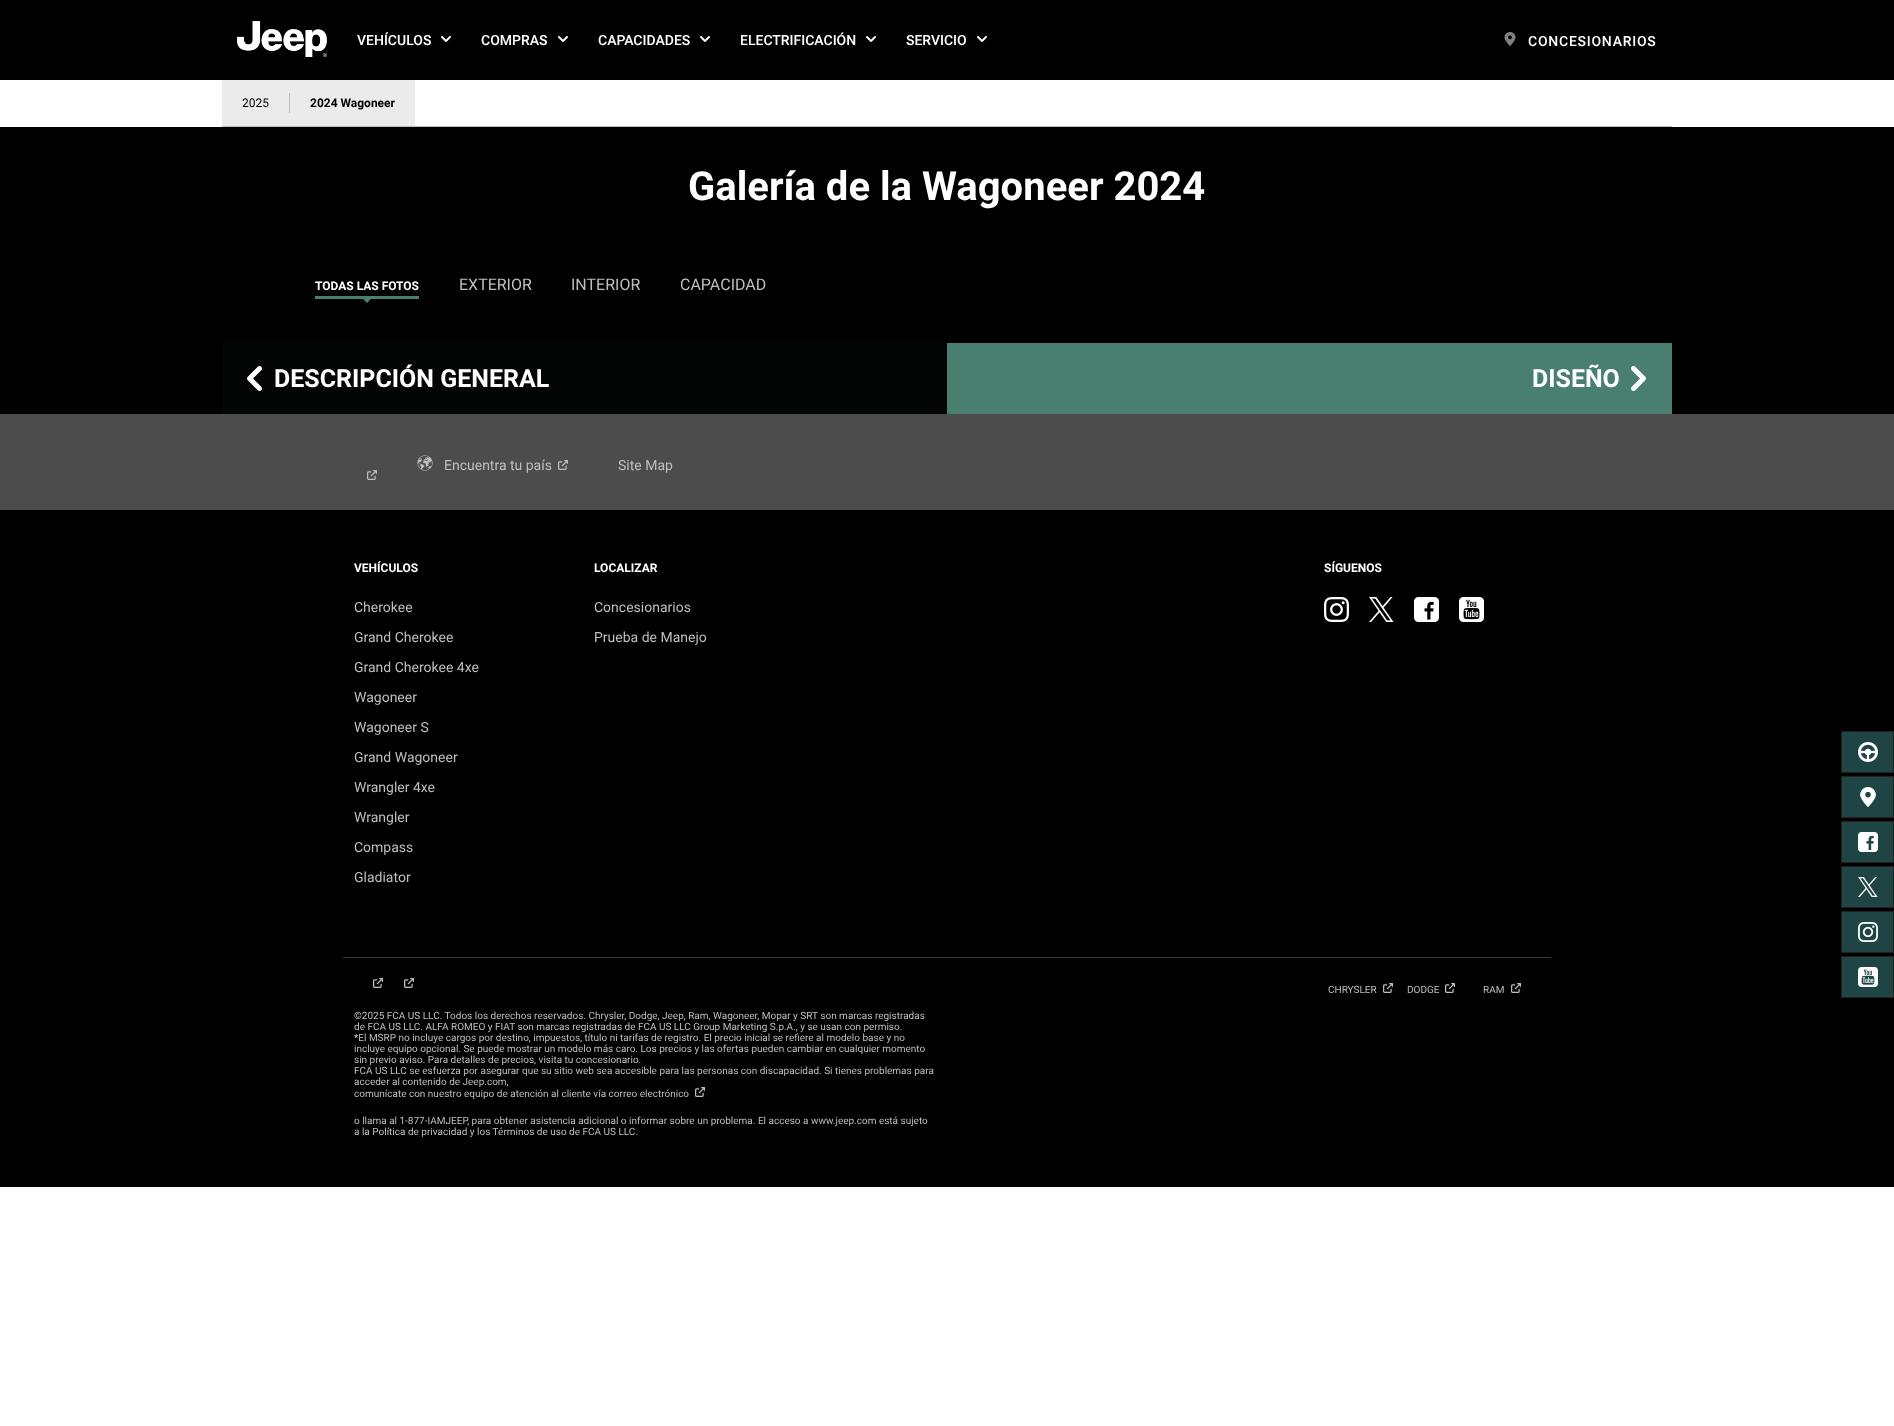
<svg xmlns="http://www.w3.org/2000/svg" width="1894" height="1426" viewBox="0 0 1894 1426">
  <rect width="100%" height="100%" fill="rgb(255,255,255)"/>
  <rect x="0" y="0" width="1894" height="1187" fill="rgb(0,0,0)"/>
  <image x="237" y="21" width="90" height="36" href="pic1.png"/>
  <text x="357" y="45" font-family="Roboto" font-size="14" font-weight="500" fill="rgb(255,255,255)">VEHÍCULOS</text>
  <image x="441" y="36" width="10" height="6" href="pic2.png"/>
  <text x="481" y="45" font-family="Roboto" font-size="14" font-weight="500" fill="rgb(255,255,255)">COMPRAS</text>
  <image x="558" y="36" width="10" height="6" href="pic2.png"/>
  <text x="598" y="45" font-family="Roboto" font-size="14" font-weight="500" fill="rgb(255,255,255)">CAPACIDADES</text>
  <image x="700" y="36" width="10" height="6" href="pic2.png"/>
  <text x="740" y="45" font-family="Roboto" font-size="14" font-weight="500" fill="rgb(255,255,255)">ELECTRIFICACIÓN</text>
  <image x="866" y="36" width="10" height="6" href="pic2.png"/>
  <text x="906" y="45" font-family="Roboto" font-size="14" font-weight="500" fill="rgb(255,255,255)">SERVICIO</text>
  <image x="977" y="36" width="10" height="6" href="pic2.png"/>
  <image x="1504" y="32" width="12" height="14" href="pic3.png"/>
  <text x="1528" y="46" font-family="Roboto" font-size="14" font-weight="500" letter-spacing="0.75" fill="rgb(255,255,255)">CONCESIONARIOS</text>
  <rect x="0" y="80" width="1894" height="47" fill="rgb(255,255,255)"/>
  <rect x="222" y="126" width="1450" height="1" fill="rgb(191,191,191)"/>
  <rect x="222" y="80" width="193" height="46" fill="rgb(235,235,235)"/>
  <text x="242" y="107" font-family="Roboto" font-size="12" fill="rgb(0,0,0)">2025</text>
  <rect x="289" y="93" width="1" height="20" fill="rgb(191,191,191)"/>
  <text x="310" y="107" font-family="Roboto" font-size="12" font-weight="bold" fill="rgb(0,0,0)">2024 Wagoneer</text>
  <text x="688" y="200" font-family="Roboto" font-size="40" font-weight="bold" fill="rgb(255,255,255)">Galería de la Wagoneer 2024</text>
  <text x="315" y="290" font-family="Roboto" font-size="12" font-weight="bold" fill="rgb(255,255,255)">TODAS LAS FOTOS</text>
  <rect x="315" y="296" width="104" height="3" fill="rgb(72,127,112)"/>
  <path d="M363 299H371L367 303Z" fill="rgb(72,127,112)"/>
  <g font-family="Roboto" font-size="16" fill="rgb(191,191,191)">
    <text x="459" y="290">EXTERIOR</text>
    <text x="571" y="290">INTERIOR</text>
    <text x="680" y="290">CAPACIDAD</text>
  </g>
  <rect x="222" y="343" width="725" height="71" fill="rgb(4,5,5)"/>
  <image x="247" y="366" width="15" height="25" href="pic4.png"/>
  <text x="274" y="387" font-family="Roboto" font-size="25" font-weight="bold" fill="rgb(255,255,255)">DESCRIPCIÓN GENERAL</text>
  <rect x="947" y="343" width="725" height="71" fill="rgb(72,127,112)"/>
  <text x="1532" y="387" font-family="Roboto" font-size="25" font-weight="bold" fill="rgb(255,255,255)">DISEÑO</text>
  <image x="1631" y="366" width="15" height="25" href="pic5.png"/>
  <rect x="0" y="414" width="1894" height="96" fill="rgb(76,76,76)"/>
  <image x="417" y="455" width="16" height="16" href="pic6.png"/>
  <text x="444" y="470" font-family="Roboto" font-size="14" fill="rgb(191,191,191)">Encuentra tu país</text>
  <image x="558" y="460" width="10" height="10" href="pic7.png"/>
  <text x="618" y="470" font-family="Roboto" font-size="14" fill="rgb(191,191,191)">Site Map</text>
  <image x="367" y="470" width="10" height="10" href="pic7.png"/>
  <text x="354" y="572" font-family="Roboto" font-size="12" font-weight="bold" fill="rgb(255,255,255)">VEHÍCULOS</text>
  <g font-family="Roboto" font-size="14" fill="rgb(191,191,191)">
    <text x="354" y="612">Cherokee</text>
    <text x="354" y="642">Grand Cherokee</text>
    <text x="354" y="672">Grand Cherokee 4xe</text>
    <text x="354" y="702">Wagoneer</text>
    <text x="354" y="732">Wagoneer S</text>
    <text x="354" y="762">Grand Wagoneer</text>
    <text x="354" y="792">Wrangler 4xe</text>
    <text x="354" y="822">Wrangler</text>
    <text x="354" y="852">Compass</text>
    <text x="354" y="882">Gladiator</text>
  </g>
  <text x="594" y="572" font-family="Roboto" font-size="12" font-weight="bold" fill="rgb(255,255,255)">LOCALIZAR</text>
  <g font-family="Roboto" font-size="14" fill="rgb(191,191,191)">
    <text x="594" y="612">Concesionarios</text>
    <text x="594" y="642">Prueba de Manejo</text>
  </g>
  <text x="1324" y="572" font-family="Roboto" font-size="12" font-weight="bold" fill="rgb(255,255,255)">SÍGUENOS</text>
  <image x="1324" y="597" width="25" height="25" href="pic8.png"/>
  <image x="1369" y="597" width="25" height="25" href="pic9.png"/>
  <image x="1414" y="597" width="25" height="25" href="pic10.png"/>
  <image x="1459" y="597" width="25" height="25" href="pic11.png"/>
  <rect x="343" y="957" width="1208" height="1" fill="rgb(56,56,56)"/>
  <image x="373" y="978" width="10" height="10" href="pic12.png"/>
  <image x="404" y="978" width="10" height="10" href="pic12.png"/>
  <text x="1328" y="993" font-family="Roboto" font-size="10" fill="rgb(191,191,191)">CHRYSLER</text>
  <image x="1383" y="983" width="10" height="10" href="pic12.png"/>
  <text x="1407" y="993" font-family="Roboto" font-size="10" fill="rgb(191,191,191)">DODGE</text>
  <image x="1445" y="983" width="10" height="10" href="pic12.png"/>
  <text x="1483" y="993" font-family="Roboto" font-size="10" fill="rgb(191,191,191)">RAM</text>
  <image x="1511" y="983" width="10" height="10" href="pic12.png"/>
  <g font-family="Roboto" font-size="10" fill="rgb(191,191,191)">
    <text>
      <tspan x="354" y="1019">©2025 FCA US LLC. Todos los derechos reservados. Chrysler, Dodge, Jeep, Ram, Wagoneer, Mopar y SRT son marcas registradas</tspan>
      <tspan x="354" y="1030">de FCA US LLC. ALFA ROMEO y FIAT son marcas registradas de FCA US LLC Group Marketing S.p.A., y se usan con permiso.</tspan>
      <tspan x="354" y="1041">*El MSRP no incluye cargos por destino, impuestos, título ni tarifas de registro. El precio inicial se refiere al modelo base y no</tspan>
      <tspan x="354" y="1052">incluye equipo opcional. Se puede mostrar un modelo más caro. Los precios y las ofertas pueden cambiar en cualquier momento</tspan>
      <tspan x="354" y="1063">sin previo aviso. Para detalles de precios, visita tu concesionario.</tspan>
      <tspan x="354" y="1074">FCA US LLC se esfuerza por asegurar que su sitio web sea accesible para las personas con discapacidad. Si tienes problemas para</tspan>
      <tspan x="354" y="1085">acceder al contenido de Jeep.com,</tspan>
      <tspan x="354" y="1097">comunícate con nuestro equipo de atención al cliente vía correo electrónico</tspan>
    </text>
  </g>
  <image x="695" y="1087" width="10" height="10" href="pic12.png"/>
  <g font-family="Roboto" font-size="10" fill="rgb(191,191,191)">
    <text>
      <tspan x="354" y="1124">o llama al 1-877-IAMJEEP, para obtener asistencia adicional o informar sobre un problema. El acceso a www.jeep.com está sujeto</tspan>
      <tspan x="354" y="1135">a la Política de privacidad y los Términos de uso de FCA US LLC.</tspan>
    </text>
  </g>
  <rect x="1841" y="731" width="1" height="42" fill="rgb(33,33,33)"/>
  <rect x="1842" y="732" width="51" height="40" fill="rgb(30,69,68)"/>
  <rect x="1842" y="731" width="52" height="1" fill="rgb(33,33,33)"/>
  <rect x="1893" y="731" width="1" height="42" fill="rgb(33,33,33)"/>
  <rect x="1842" y="772" width="52" height="1" fill="rgb(33,33,33)"/>
  <image x="1858" y="742" width="20" height="20" href="pic13.png"/>
  <rect x="1841" y="776" width="1" height="42" fill="rgb(33,33,33)"/>
  <rect x="1842" y="777" width="51" height="40" fill="rgb(30,69,68)"/>
  <rect x="1842" y="776" width="52" height="1" fill="rgb(33,33,33)"/>
  <rect x="1893" y="776" width="1" height="42" fill="rgb(33,33,33)"/>
  <rect x="1842" y="817" width="52" height="1" fill="rgb(33,33,33)"/>
  <image x="1860" y="787" width="16" height="20" href="pic14.png"/>
  <rect x="1841" y="821" width="1" height="42" fill="rgb(33,33,33)"/>
  <rect x="1842" y="822" width="51" height="40" fill="rgb(30,69,68)"/>
  <rect x="1842" y="821" width="52" height="1" fill="rgb(33,33,33)"/>
  <rect x="1893" y="821" width="1" height="42" fill="rgb(33,33,33)"/>
  <rect x="1842" y="862" width="52" height="1" fill="rgb(33,33,33)"/>
  <image x="1858" y="832" width="20" height="20" href="pic15.png"/>
  <rect x="1841" y="866" width="1" height="42" fill="rgb(33,33,33)"/>
  <rect x="1842" y="867" width="51" height="40" fill="rgb(30,69,68)"/>
  <rect x="1842" y="866" width="52" height="1" fill="rgb(33,33,33)"/>
  <rect x="1893" y="866" width="1" height="42" fill="rgb(33,33,33)"/>
  <rect x="1842" y="907" width="52" height="1" fill="rgb(33,33,33)"/>
  <image x="1858" y="877" width="20" height="20" href="pic16.png"/>
  <rect x="1841" y="911" width="1" height="42" fill="rgb(33,33,33)"/>
  <rect x="1842" y="912" width="51" height="40" fill="rgb(30,69,68)"/>
  <rect x="1842" y="911" width="52" height="1" fill="rgb(33,33,33)"/>
  <rect x="1893" y="911" width="1" height="42" fill="rgb(33,33,33)"/>
  <rect x="1842" y="952" width="52" height="1" fill="rgb(33,33,33)"/>
  <image x="1858" y="922" width="20" height="20" href="pic17.png"/>
  <rect x="1841" y="956" width="1" height="42" fill="rgb(33,33,33)"/>
  <rect x="1842" y="957" width="51" height="40" fill="rgb(30,69,68)"/>
  <rect x="1842" y="956" width="52" height="1" fill="rgb(33,33,33)"/>
  <rect x="1893" y="956" width="1" height="42" fill="rgb(33,33,33)"/>
  <rect x="1842" y="997" width="52" height="1" fill="rgb(33,33,33)"/>
  <image x="1858" y="967" width="20" height="20" href="pic18.png"/>
</svg>
